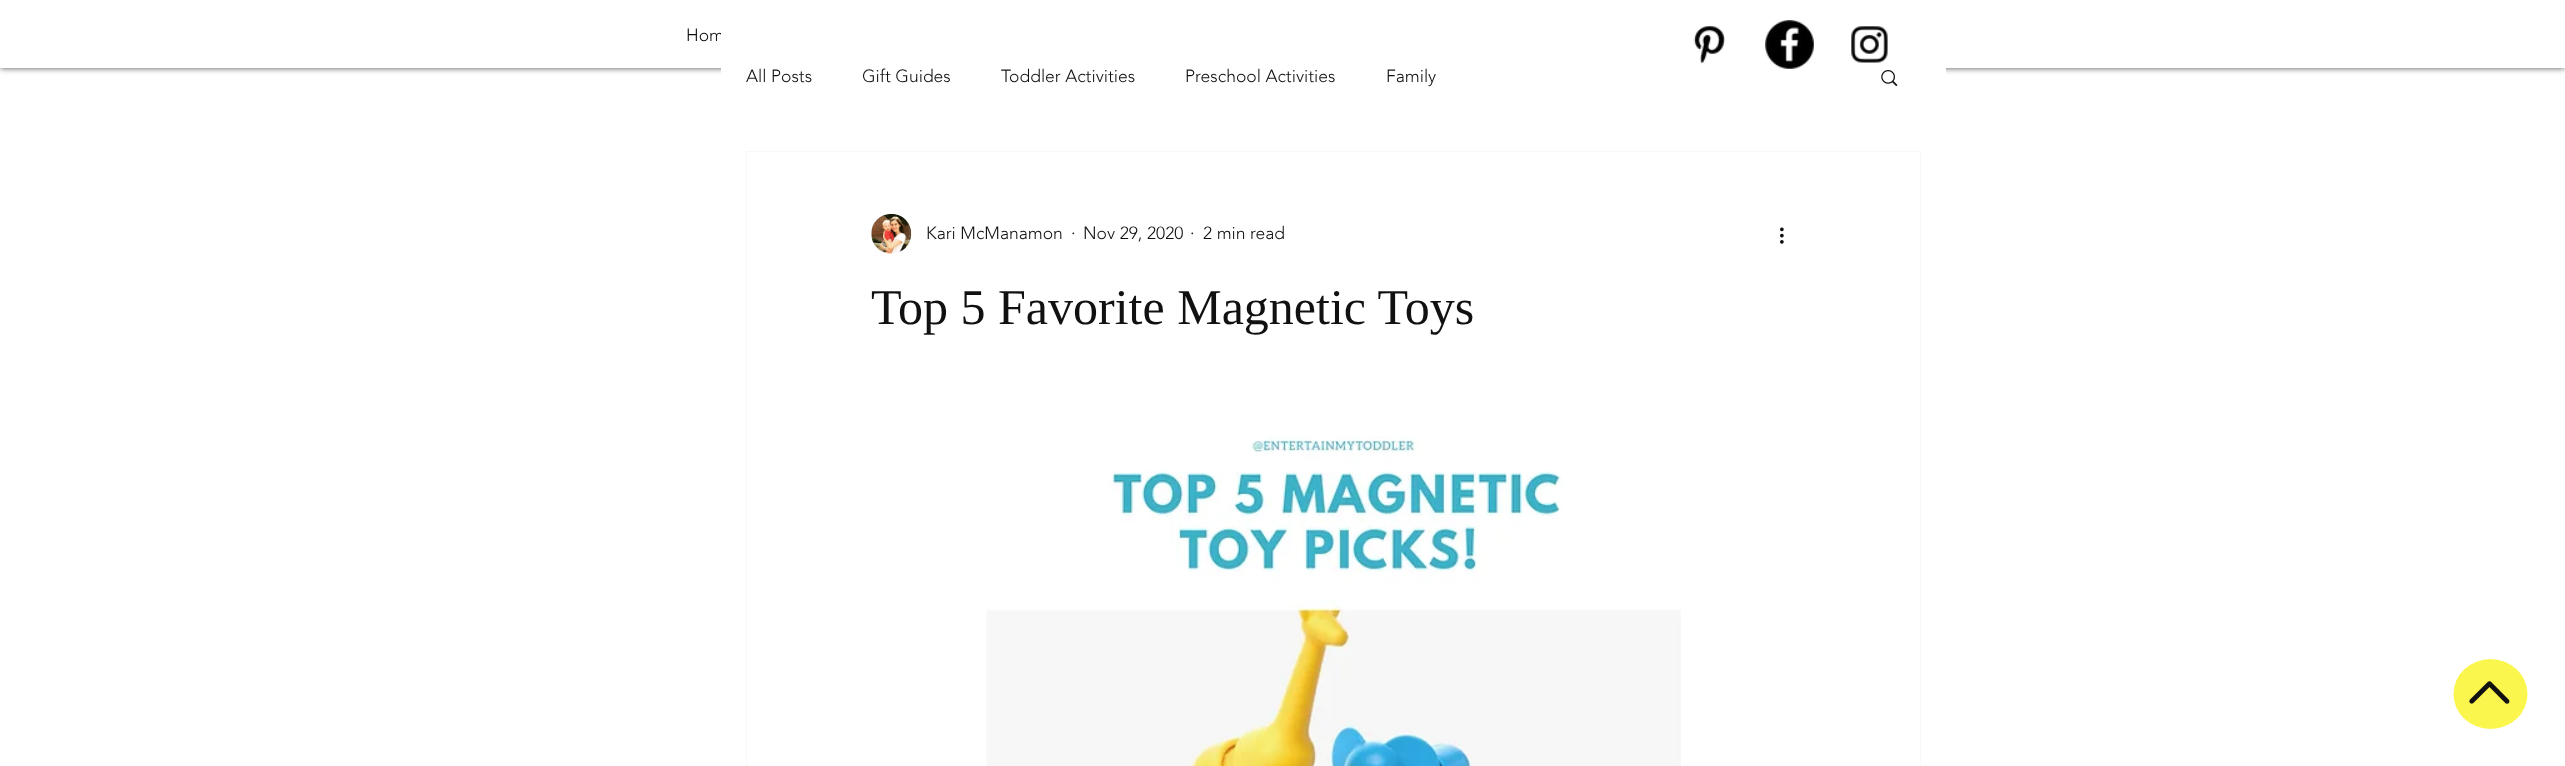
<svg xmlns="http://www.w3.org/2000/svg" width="2565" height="766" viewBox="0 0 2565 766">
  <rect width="100%" height="100%" fill="rgb(255,255,255)"/>
  <rect x="0" y="0" width="2565" height="68" fill="rgba(0,0,0,0.7)" filter="blur(3px)"/>
  <rect x="0" y="0" width="2565" height="68" fill="rgb(255,255,255)"/>
  <text x="686" y="41" font-family="'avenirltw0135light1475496'" font-size="17.5" font-weight="300" fill="rgb(17,17,17)">Hom</text>
  <rect x="721" y="33" width="1225" height="42" fill="rgb(255,255,255)"/>
  <image x="1693" y="25" width="33" height="39" href="pic1.png"/>
  <image x="1765" y="20" width="49" height="49" href="pic2.png"/>
  <image x="1851" y="26" width="37" height="37" href="pic3.png"/>
  <g font-family="'avenirltw0135light1475496'" font-size="17.5" font-weight="300" fill="rgb(17,17,17)">
    <text x="746" y="82">All Posts</text>
    <text x="862" y="82">Gift Guides</text>
    <text x="1001" y="82">Toddler Activities</text>
    <text x="1185" y="82">Preschool Activities</text>
    <text x="1386" y="82">Family</text>
  </g>
  <image x="1881" y="70" width="17" height="17" href="pic4.png"/>
  <rect x="746.5" y="151.5" width="1174" height="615" fill="none" stroke="rgb(248,248,252)"/>
  <image x="871" y="213" width="41" height="41" href="pic5.png"/>
  <g font-family="'avenirltw0135light1475496'" font-size="17.5" font-weight="300" fill="rgb(17,17,17)">
    <text x="926" y="239">Kari McManamon</text>
    <text x="1071" y="239">·</text>
    <text x="1083" y="239">Nov 29, 2020</text>
    <text x="1190" y="239">·</text>
    <text x="1203" y="239">2 min read</text>
  </g>
  <image x="1780" y="227" width="4" height="17" href="pic6.png"/>
  <text x="871" y="324" font-family="Liberation Serif" font-size="50" fill="rgb(17,17,17)">Top 5 Favorite Magnetic Toys</text>
  <image x="986" y="436" width="695" height="330" href="pic7.png"/>
  <ellipse cx="2490.5" cy="694" rx="37" ry="35" fill="rgb(250,246,77)"/>
  <image x="2469" y="681" width="41" height="23" href="pic8.png"/>
</svg>
